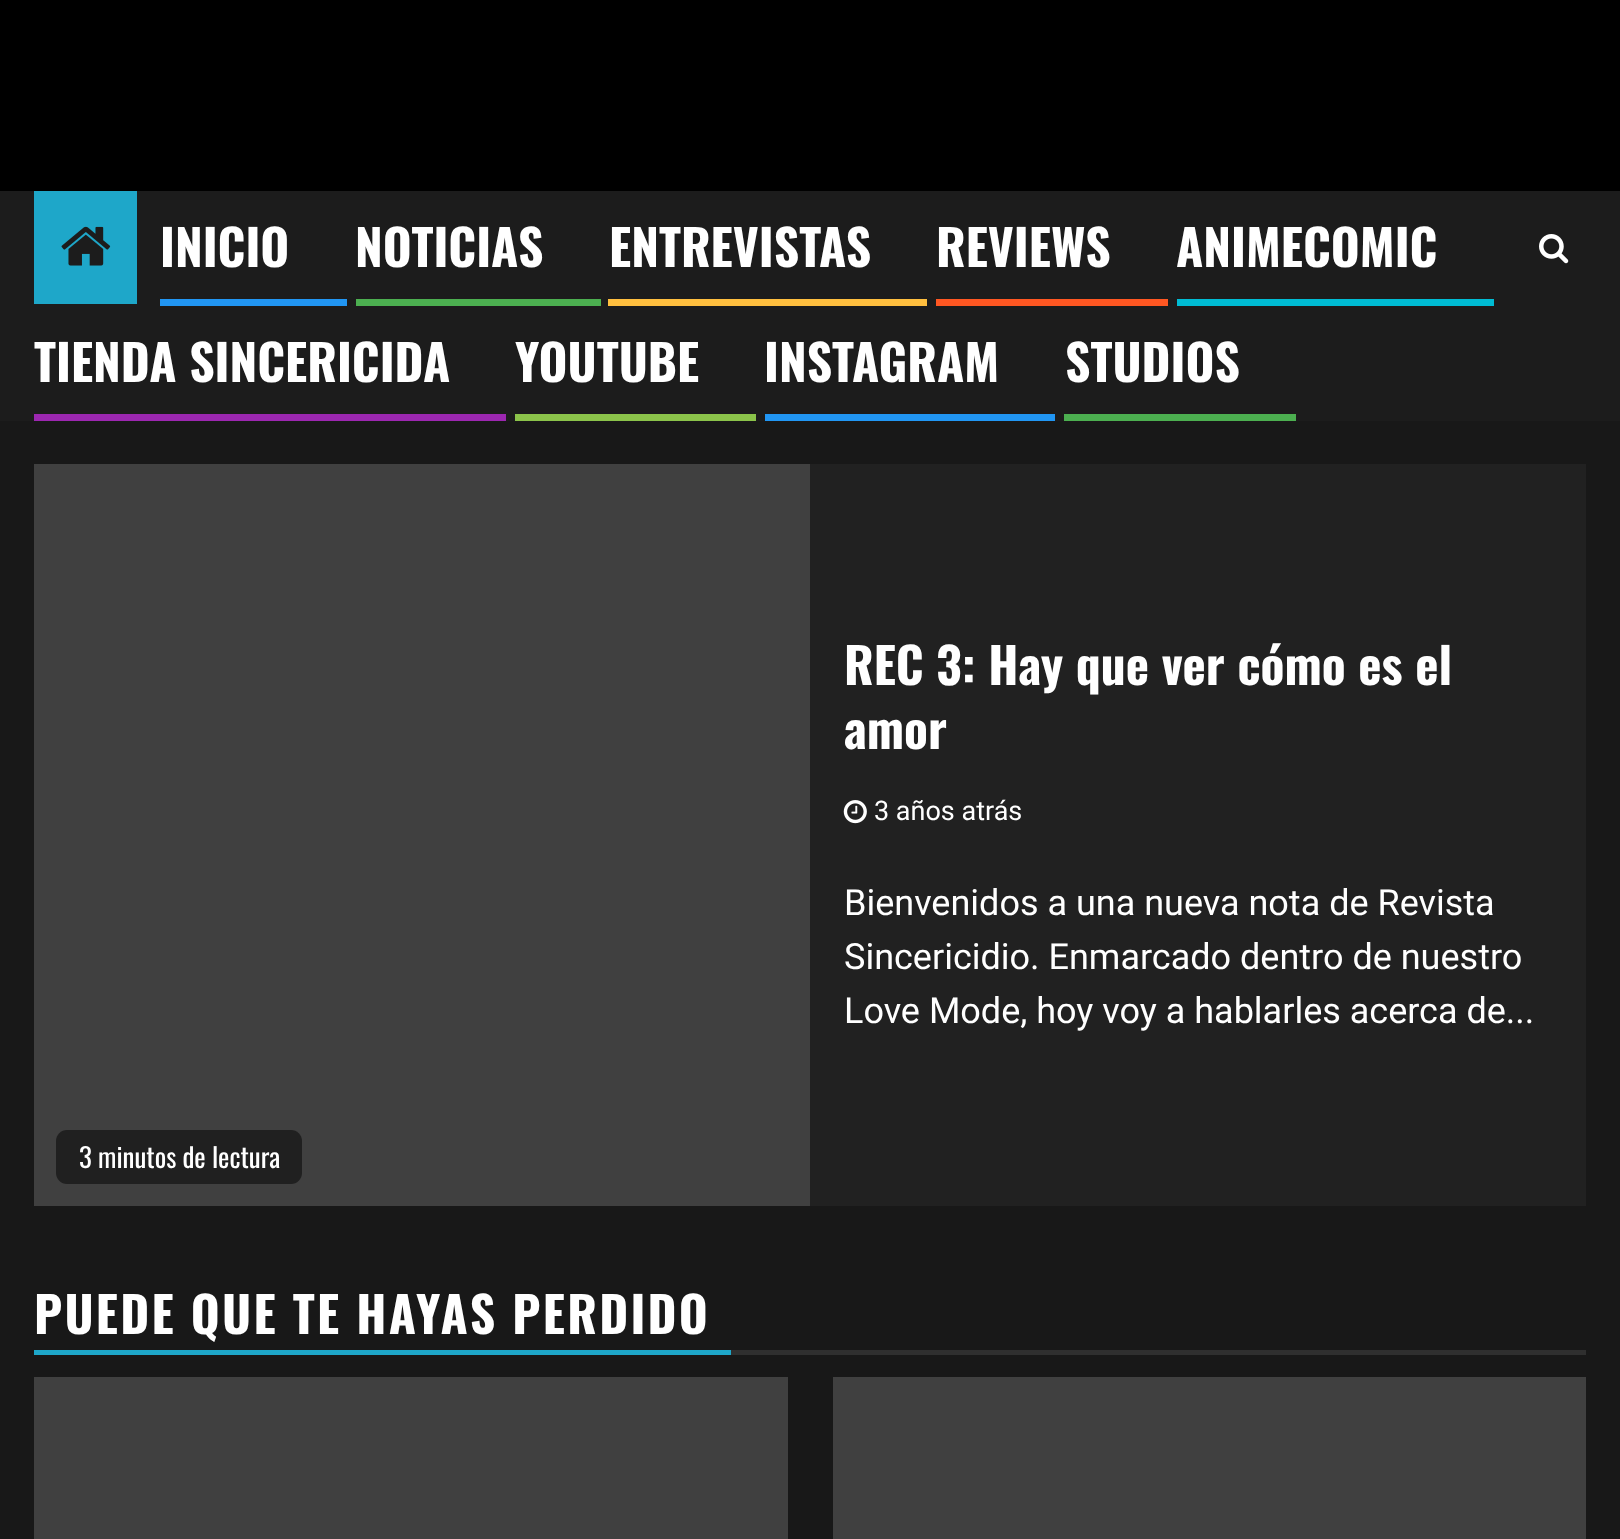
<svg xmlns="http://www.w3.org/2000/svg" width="1620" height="1539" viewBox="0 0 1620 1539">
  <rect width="100%" height="100%" fill="rgb(24,24,24)"/>
  <rect x="0" y="0" width="1620" height="191" fill="rgb(0,0,0)"/>
  <rect x="0" y="191" width="1620" height="230" fill="rgb(28,28,28)"/>
  <rect x="34" y="191" width="103" height="113" fill="rgb(30,167,201)"/>
  <image x="61" y="226" width="50" height="40" href="pic1.png"/>
  <text x="160" y="267" font-family="Oswald" font-size="49.5" font-weight="bold" fill="rgb(255,255,255)">INICIO</text>
  <rect x="160" y="299" width="187" height="7" fill="rgb(33,150,243)"/>
  <text x="355" y="267" font-family="Oswald" font-size="49.5" font-weight="bold" fill="rgb(255,255,255)">NOTICIAS</text>
  <rect x="356" y="299" width="245" height="7" fill="rgb(76,175,80)"/>
  <text x="609" y="267" font-family="Oswald" font-size="49.5" font-weight="bold" fill="rgb(255,255,255)">ENTREVISTAS</text>
  <rect x="608" y="299" width="319" height="7" fill="rgb(255,191,63)"/>
  <text x="936" y="267" font-family="Oswald" font-size="49.5" font-weight="bold" fill="rgb(255,255,255)">REVIEWS</text>
  <rect x="936" y="299" width="232" height="7" fill="rgb(255,87,34)"/>
  <text x="1176" y="267" font-family="Oswald" font-size="49.5" font-weight="bold" fill="rgb(255,255,255)">ANIMECOMIC</text>
  <rect x="1177" y="299" width="317" height="7" fill="rgb(0,188,212)"/>
  <text x="34" y="382" font-family="Oswald" font-size="49.5" font-weight="bold" fill="rgb(255,255,255)">TIENDA SINCERICIDA</text>
  <rect x="34" y="414" width="472" height="7" fill="rgb(156,39,176)"/>
  <text x="515" y="382" font-family="Oswald" font-size="49.5" font-weight="bold" fill="rgb(255,255,255)">YOUTUBE</text>
  <rect x="515" y="414" width="241" height="7" fill="rgb(139,195,74)"/>
  <text x="764" y="382" font-family="Oswald" font-size="49.5" font-weight="bold" fill="rgb(255,255,255)">INSTAGRAM</text>
  <rect x="765" y="414" width="290" height="7" fill="rgb(33,150,243)"/>
  <text x="1065" y="382" font-family="Oswald" font-size="49.5" font-weight="bold" fill="rgb(255,255,255)">STUDIOS</text>
  <rect x="1064" y="414" width="232" height="7" fill="rgb(76,175,80)"/>
  <image x="1539" y="234" width="30" height="30" href="pic2.png"/>
  <rect x="810" y="464" width="776" height="742" fill="rgb(33,33,33)"/>
  <g font-family="Oswald" font-size="49.5" font-weight="bold" fill="rgb(255,255,255)">
    <text>
      <tspan x="844" y="685">REC 3: Hay que ver cómo es el</tspan>
      <tspan x="844" y="749">amor</tspan>
    </text>
  </g>
  <image x="843" y="800" width="24" height="24" href="pic3.png"/>
  <text x="874" y="820" font-family="Roboto" font-size="27" fill="rgb(255,255,255)">3 años atrás</text>
  <g font-family="Roboto" font-size="36" fill="rgb(255,255,255)">
    <text>
      <tspan x="844" y="915">Bienvenidos a una nueva nota de Revista</tspan>
      <tspan x="844" y="969">Sincericidio. Enmarcado dentro de nuestro</tspan>
      <tspan x="844" y="1023">Love Mode, hoy voy a hablarles acerca de...</tspan>
    </text>
  </g>
  <rect x="34" y="464" width="776" height="742" fill="rgb(64,64,64)"/>
  <rect x="56" y="1130" width="246" height="54" rx="11" fill="rgb(32,32,32)"/>
  <text x="79" y="1168" font-family="Oswald" font-size="27" fill="rgb(255,255,255)">3 minutos de lectura</text>
  <rect x="34" y="1350" width="697" height="5" fill="rgb(30,167,201)"/>
  <text x="34" y="1334" font-family="Oswald" font-size="49.5" font-weight="bold" letter-spacing="2.25" fill="rgb(255,255,255)">PUEDE QUE TE HAYAS PERDIDO</text>
  <rect x="731" y="1350" width="855" height="5" fill="rgb(47,47,47)"/>
  <rect x="34" y="1377" width="754" height="162" fill="rgb(64,64,64)"/>
  <rect x="833" y="1377" width="753" height="162" fill="rgb(64,64,64)"/>
</svg>
